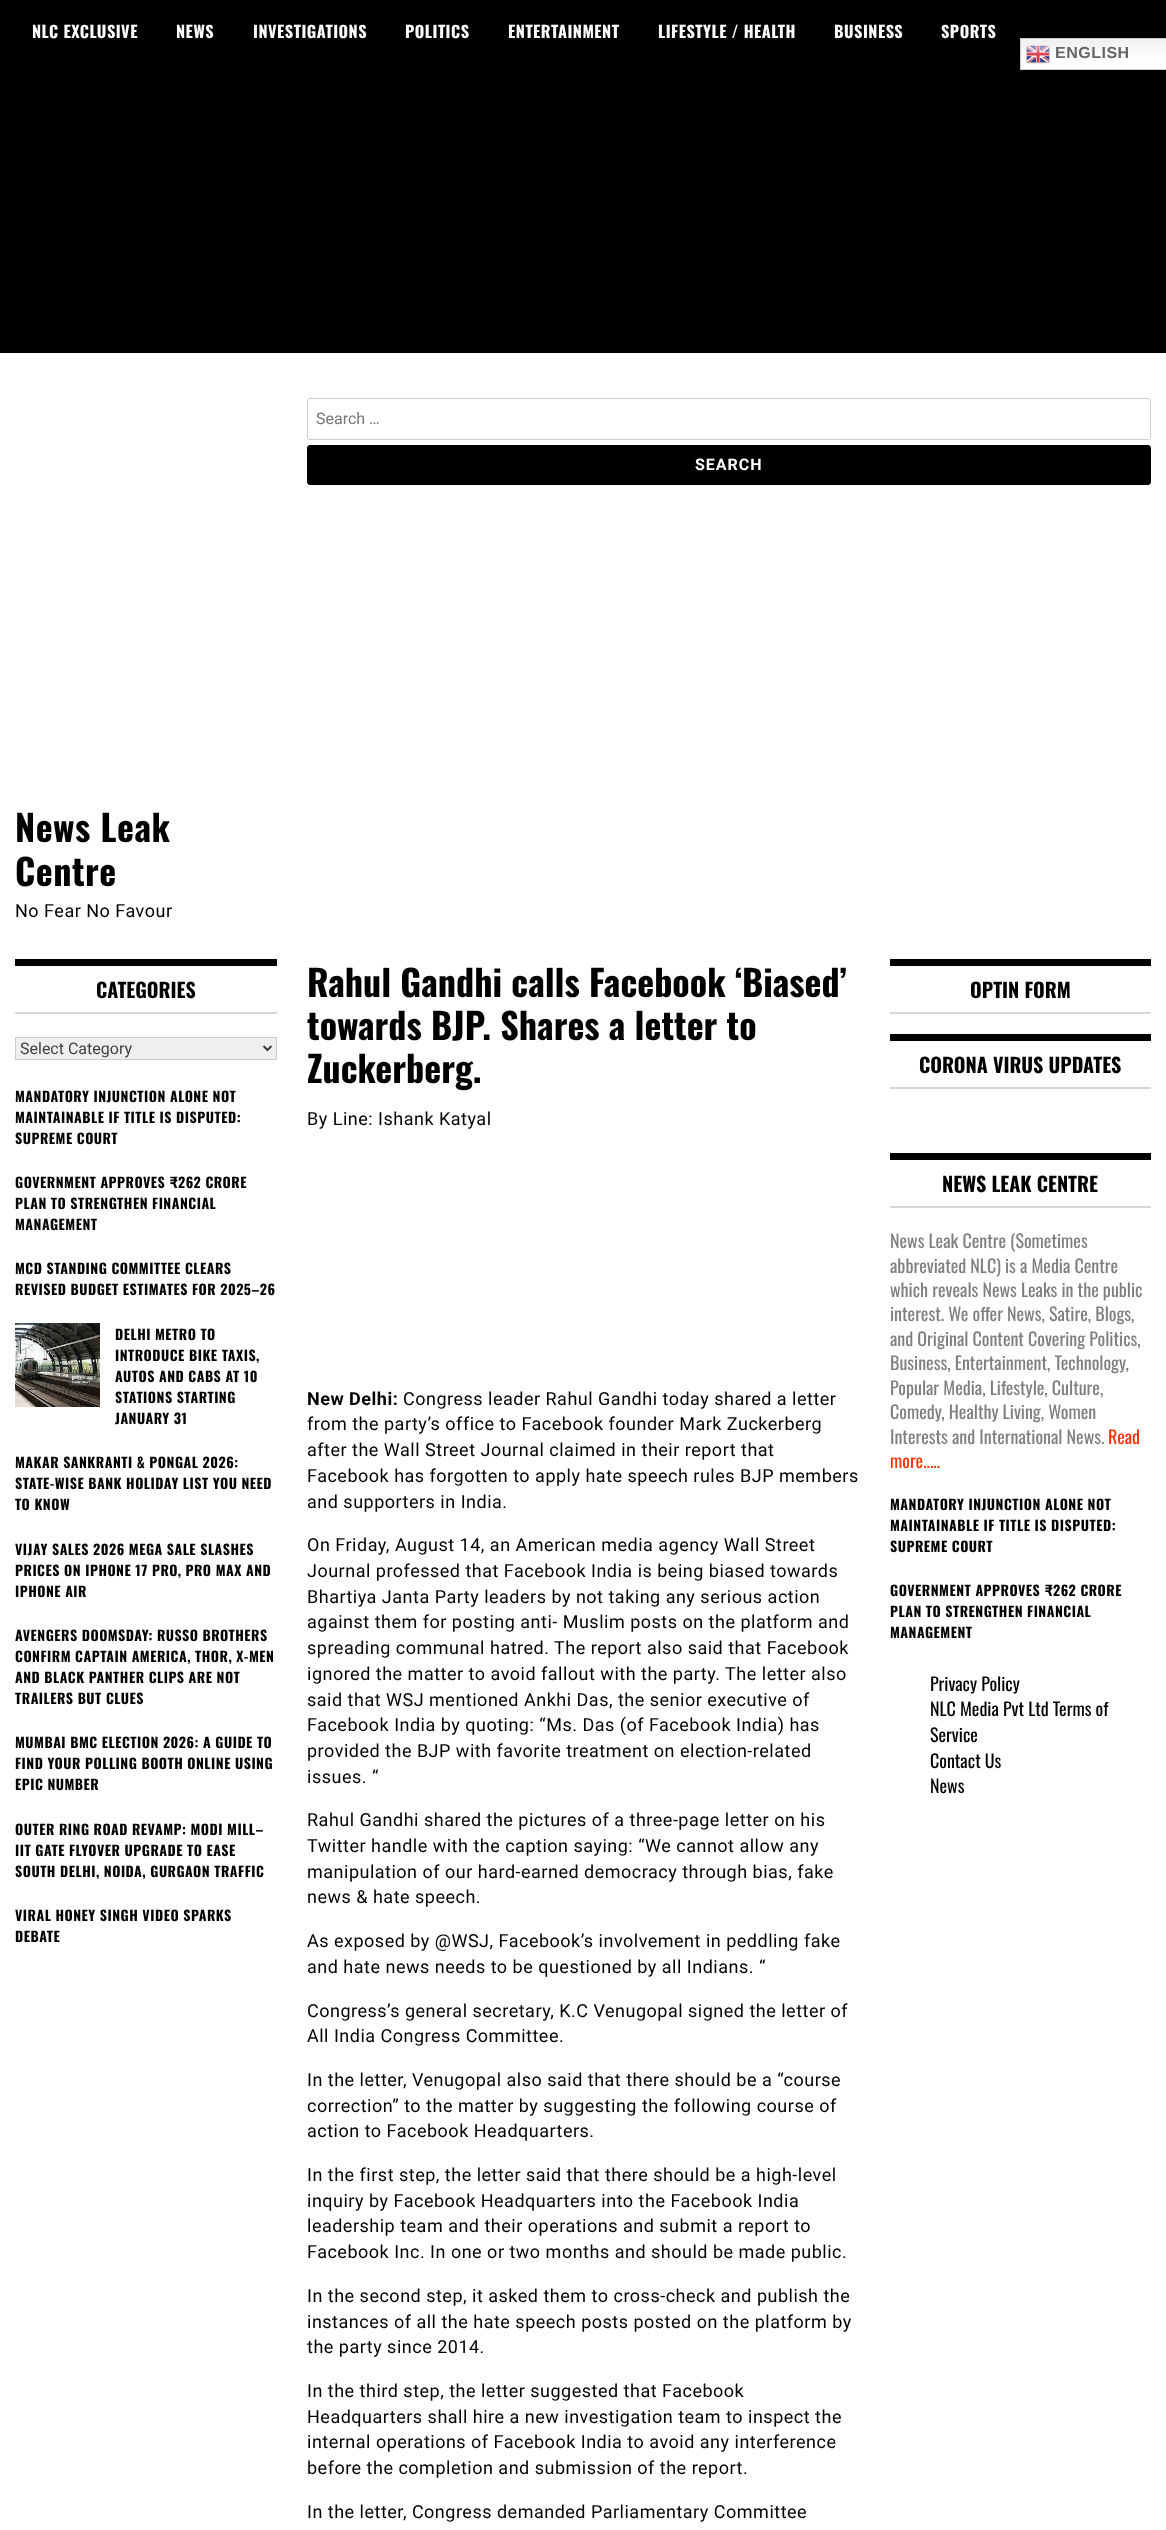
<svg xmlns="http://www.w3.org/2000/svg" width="1166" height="2530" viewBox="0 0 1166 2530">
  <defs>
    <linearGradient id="g1" gradientUnits="userSpaceOnUse" x1="1107" y1="38" x2="1107" y2="70"><stop offset="0" stop-color="rgb(239,239,239)"/><stop offset="0.7" stop-color="rgb(255,255,255)"/></linearGradient>
  </defs>
  <rect width="100%" height="100%" fill="rgb(255,255,255)"/>
  <rect x="0" y="0" width="1166" height="353" fill="rgb(0,0,0)"/>
  <g font-family="Oswald" font-size="16.25" font-weight="bold" letter-spacing="0.5" fill="rgb(255,255,255)">
    <text x="32" y="38">NLC EXCLUSIVE</text>
    <text x="176" y="38">NEWS</text>
    <text x="253" y="38">INVESTIGATIONS</text>
    <text x="405" y="38">POLITICS</text>
    <text x="508" y="38">ENTERTAINMENT</text>
    <text x="658" y="38">LIFESTYLE / HEALTH</text>
    <text x="834" y="38">BUSINESS</text>
    <text x="941" y="38">SPORTS</text>
  </g>
  <rect x="1021" y="39" width="145" height="30" fill="url(#g1)"/>
  <rect x="1020.5" y="38.5" width="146" height="31" fill="none" stroke="rgb(204,204,204)"/>
  <image x="1026" y="45" width="24" height="19" href="pic1.png"/>
  <text x="1055" y="58" font-family="Liberation Sans" font-size="16" font-weight="bold" letter-spacing="0.5" fill="rgb(102,102,102)">ENGLISH</text>
  <rect x="307.5" y="398.5" width="843" height="41" rx="2.5" fill="none" stroke="rgb(204,204,204)"/>
  <text x="316" y="424" font-family="Roboto" font-size="16" fill="rgb(117,117,117)">Search …</text>
  <rect x="307.5" y="445.5" width="843" height="39" rx="2.5" fill="rgb(0,0,0)" stroke="rgb(0,0,0)"/>
  <text x="695" y="470" font-family="Roboto" font-size="16" font-weight="bold" letter-spacing="1" fill="rgb(255,255,255)">SEARCH</text>
  <g font-family="Oswald" font-size="36" font-weight="bold" letter-spacing="0.5" fill="rgb(0,0,0)">
    <text>
      <tspan x="15" y="842">News Leak</tspan>
      <tspan x="15" y="886">Centre</tspan>
    </text>
  </g>
  <text x="15" y="917" font-family="Roboto" font-size="18" letter-spacing="0.5" fill="rgb(0,0,0)">No Fear No Favour</text>
  <rect x="15" y="959" width="262" height="7" fill="rgb(0,0,0)"/>
  <rect x="15" y="1012" width="262" height="2" fill="rgb(215,215,215)"/>
  <text x="96" y="998" font-family="Oswald" font-size="20" font-weight="bold" fill="rgb(0,0,0)">CATEGORIES</text>
  <rect x="15.5" y="1037.5" width="261" height="22" fill="rgb(239,239,239)" stroke="rgb(204,204,204)"/>
  <path d="M263.5 1046L267.5 1050L271.5 1046" fill="none" stroke="rgb(64,64,64)" stroke-width="2"/>
  <text x="20" y="1054" font-family="Roboto" font-size="16" fill="rgb(64,64,64)">Select Category</text>
  <g font-family="Oswald" font-size="14" font-weight="bold" letter-spacing="0.5" fill="rgb(0,0,0)">
    <text>
      <tspan x="15" y="1102">MANDATORY INJUNCTION ALONE NOT</tspan>
      <tspan x="15" y="1123">MAINTAINABLE IF TITLE IS DISPUTED:</tspan>
      <tspan x="15" y="1144">SUPREME COURT</tspan>
    </text>
    <text>
      <tspan x="15" y="1188">GOVERNMENT APPROVES ₹262 CRORE</tspan>
      <tspan x="15" y="1209">PLAN TO STRENGTHEN FINANCIAL</tspan>
      <tspan x="15" y="1230">MANAGEMENT</tspan>
    </text>
    <text>
      <tspan x="15" y="1274">MCD STANDING COMMITTEE CLEARS</tspan>
      <tspan x="15" y="1295">REVISED BUDGET ESTIMATES FOR 2025–26</tspan>
    </text>
  </g>
  <image x="15" y="1323" width="85" height="84" href="pic2.png"/>
  <g font-family="Oswald" font-size="14" font-weight="bold" letter-spacing="0.5" fill="rgb(0,0,0)">
    <text>
      <tspan x="115" y="1340">DELHI METRO TO</tspan>
      <tspan x="115" y="1361">INTRODUCE BIKE TAXIS,</tspan>
      <tspan x="115" y="1382">AUTOS AND CABS AT 10</tspan>
      <tspan x="115" y="1403">STATIONS STARTING</tspan>
      <tspan x="115" y="1424">JANUARY 31</tspan>
    </text>
    <text>
      <tspan x="15" y="1468">MAKAR SANKRANTI &amp; PONGAL 2026:</tspan>
      <tspan x="15" y="1489">STATE-WISE BANK HOLIDAY LIST YOU NEED</tspan>
      <tspan x="15" y="1510">TO KNOW</tspan>
    </text>
    <text>
      <tspan x="15" y="1555">VIJAY SALES 2026 MEGA SALE SLASHES</tspan>
      <tspan x="15" y="1576">PRICES ON IPHONE 17 PRO, PRO MAX AND</tspan>
      <tspan x="15" y="1597">IPHONE AIR</tspan>
    </text>
    <text>
      <tspan x="15" y="1641">AVENGERS DOOMSDAY: RUSSO BROTHERS</tspan>
      <tspan x="15" y="1662">CONFIRM CAPTAIN AMERICA, THOR, X-MEN</tspan>
      <tspan x="15" y="1683">AND BLACK PANTHER CLIPS ARE NOT</tspan>
      <tspan x="15" y="1704">TRAILERS BUT CLUES</tspan>
    </text>
    <text>
      <tspan x="15" y="1748">MUMBAI BMC ELECTION 2026: A GUIDE TO</tspan>
      <tspan x="15" y="1769">FIND YOUR POLLING BOOTH ONLINE USING</tspan>
      <tspan x="15" y="1790">EPIC NUMBER</tspan>
    </text>
    <text>
      <tspan x="15" y="1835">OUTER RING ROAD REVAMP: MODI MILL–</tspan>
      <tspan x="15" y="1856">IIT GATE FLYOVER UPGRADE TO EASE</tspan>
      <tspan x="15" y="1877">SOUTH DELHI, NOIDA, GURGAON TRAFFIC</tspan>
    </text>
    <text>
      <tspan x="15" y="1921">VIRAL HONEY SINGH VIDEO SPARKS</tspan>
      <tspan x="15" y="1942">DEBATE</tspan>
    </text>
  </g>
  <g font-family="Oswald" font-size="36" font-weight="bold" fill="rgb(0,0,0)">
    <text>
      <tspan x="307" y="997">Rahul Gandhi calls Facebook ‘Biased’</tspan>
      <tspan x="307" y="1040">towards BJP. Shares a letter to</tspan>
      <tspan x="307" y="1083">Zuckerberg.</tspan>
    </text>
  </g>
  <text x="307" y="1125" font-family="Roboto" font-size="18" letter-spacing="0.5" fill="rgb(0,0,0)">By Line: Ishank Katyal</text>
  <text x="307" y="1405" font-family="Roboto" font-size="18" font-weight="bold" letter-spacing="0.5" fill="rgb(0,0,0)">New Delhi:</text>
  <g font-family="Roboto" font-size="18" letter-spacing="0.5" fill="rgb(0,0,0)">
    <text x="403" y="1405">Congress leader Rahul Gandhi today shared a letter</text>
    <text>
      <tspan x="307" y="1430">from the party’s office to Facebook founder Mark Zuckerberg</tspan>
      <tspan x="307" y="1456">after the Wall Street Journal claimed in their report that</tspan>
      <tspan x="307" y="1482">Facebook has forgotten to apply hate speech rules BJP members</tspan>
      <tspan x="307" y="1508">and supporters in India.</tspan>
    </text>
    <text>
      <tspan x="307" y="1551">On Friday, August 14, an American media agency Wall Street</tspan>
      <tspan x="307" y="1577">Journal professed that Facebook India is being biased towards</tspan>
      <tspan x="307" y="1603">Bhartiya Janta Party leaders by not taking any serious action</tspan>
      <tspan x="307" y="1628">against them for posting anti- Muslim posts on the platform and</tspan>
      <tspan x="307" y="1654">spreading communal hatred. The report also said that Facebook</tspan>
      <tspan x="307" y="1680">ignored the matter to avoid fallout with the party. The letter also</tspan>
      <tspan x="307" y="1706">said that WSJ mentioned Ankhi Das, the senior executive of</tspan>
      <tspan x="307" y="1731">Facebook India by quoting: “Ms. Das (of Facebook India) has</tspan>
      <tspan x="307" y="1757">provided the BJP with favorite treatment on election-related</tspan>
      <tspan x="307" y="1783">issues. “</tspan>
    </text>
    <text>
      <tspan x="307" y="1826">Rahul Gandhi shared the pictures of a three-page letter on his</tspan>
      <tspan x="307" y="1852">Twitter handle with the caption saying: “We cannot allow any</tspan>
      <tspan x="307" y="1878">manipulation of our hard-earned democracy through bias, fake</tspan>
      <tspan x="307" y="1903">news &amp; hate speech.</tspan>
    </text>
    <text>
      <tspan x="307" y="1947">As exposed by @WSJ, Facebook’s involvement in peddling fake</tspan>
      <tspan x="307" y="1973">and hate news needs to be questioned by all Indians. “</tspan>
    </text>
    <text>
      <tspan x="307" y="2017">Congress’s general secretary, K.C Venugopal signed the letter of</tspan>
      <tspan x="307" y="2042">All India Congress Committee.</tspan>
    </text>
    <text>
      <tspan x="307" y="2086">In the letter, Venugopal also said that there should be a “course</tspan>
      <tspan x="307" y="2112">correction” to the matter by suggesting the following course of</tspan>
      <tspan x="307" y="2137">action to Facebook Headquarters.</tspan>
    </text>
    <text>
      <tspan x="307" y="2181">In the first step, the letter said that there should be a high-level</tspan>
      <tspan x="307" y="2207">inquiry by Facebook Headquarters into the Facebook India</tspan>
      <tspan x="307" y="2232">leadership team and their operations and submit a report to</tspan>
      <tspan x="307" y="2258">Facebook Inc. In one or two months and should be made public.</tspan>
    </text>
    <text>
      <tspan x="307" y="2302">In the second step, it asked them to cross-check and publish the</tspan>
      <tspan x="307" y="2328">instances of all the hate speech posts posted on the platform by</tspan>
      <tspan x="307" y="2353">the party since 2014.</tspan>
    </text>
    <text>
      <tspan x="307" y="2397">In the third step, the letter suggested that Facebook</tspan>
      <tspan x="307" y="2423">Headquarters shall hire a new investigation team to inspect the</tspan>
      <tspan x="307" y="2448">internal operations of Facebook India to avoid any interference</tspan>
      <tspan x="307" y="2474">before the completion and submission of the report.</tspan>
    </text>
    <text x="307" y="2518">In the letter, Congress demanded Parliamentary Committee</text>
  </g>
  <rect x="890" y="959" width="261" height="7" fill="rgb(0,0,0)"/>
  <rect x="890" y="1012" width="261" height="2" fill="rgb(215,215,215)"/>
  <text x="970" y="998" font-family="Oswald" font-size="20" font-weight="bold" fill="rgb(0,0,0)">OPTIN FORM</text>
  <rect x="890" y="1034" width="261" height="7" fill="rgb(0,0,0)"/>
  <rect x="890" y="1087" width="261" height="2" fill="rgb(215,215,215)"/>
  <text x="919" y="1073" font-family="Oswald" font-size="20" font-weight="bold" fill="rgb(0,0,0)">CORONA VIRUS UPDATES</text>
  <rect x="890" y="1153" width="261" height="7" fill="rgb(0,0,0)"/>
  <rect x="890" y="1206" width="261" height="2" fill="rgb(215,215,215)"/>
  <text x="942" y="1192" font-family="Oswald" font-size="20" font-weight="bold" fill="rgb(0,0,0)">NEWS LEAK CENTRE</text>
  <g font-family="Oswald" font-size="18" fill="rgb(127,127,127)">
    <text>
      <tspan x="890" y="1248">News Leak Centre (Sometimes</tspan>
      <tspan x="890" y="1273">abbreviated NLC) is a Media Centre</tspan>
      <tspan x="890" y="1297">which reveals News Leaks in the public</tspan>
      <tspan x="890" y="1321">interest. We offer News, Satire, Blogs,</tspan>
      <tspan x="890" y="1346">and Original Content Covering Politics,</tspan>
      <tspan x="890" y="1370">Business, Entertainment, Technology,</tspan>
      <tspan x="890" y="1395">Popular Media, Lifestyle, Culture,</tspan>
      <tspan x="890" y="1419">Comedy, Healthy Living, Women</tspan>
      <tspan x="890" y="1444">Interests and International News.</tspan>
    </text>
  </g>
  <g font-family="Oswald" font-size="18" fill="rgb(255,50,9)">
    <text x="1108" y="1444">Read</text>
    <text x="890" y="1468">more.....</text>
  </g>
  <g font-family="Oswald" font-size="14" font-weight="bold" letter-spacing="0.5" fill="rgb(0,0,0)">
    <text>
      <tspan x="890" y="1510">MANDATORY INJUNCTION ALONE NOT</tspan>
      <tspan x="890" y="1531">MAINTAINABLE IF TITLE IS DISPUTED:</tspan>
      <tspan x="890" y="1552">SUPREME COURT</tspan>
    </text>
    <text>
      <tspan x="890" y="1596">GOVERNMENT APPROVES ₹262 CRORE</tspan>
      <tspan x="890" y="1617">PLAN TO STRENGTHEN FINANCIAL</tspan>
      <tspan x="890" y="1638">MANAGEMENT</tspan>
    </text>
  </g>
  <g font-family="Oswald" font-size="18" fill="rgb(0,0,0)">
    <text>
      <tspan x="930" y="1691">Privacy Policy</tspan>
      <tspan x="930" y="1716">NLC Media Pvt Ltd Terms of</tspan>
      <tspan x="930" y="1742">Service</tspan>
      <tspan x="930" y="1768">Contact Us</tspan>
      <tspan x="930" y="1793">News</tspan>
    </text>
  </g>
</svg>
